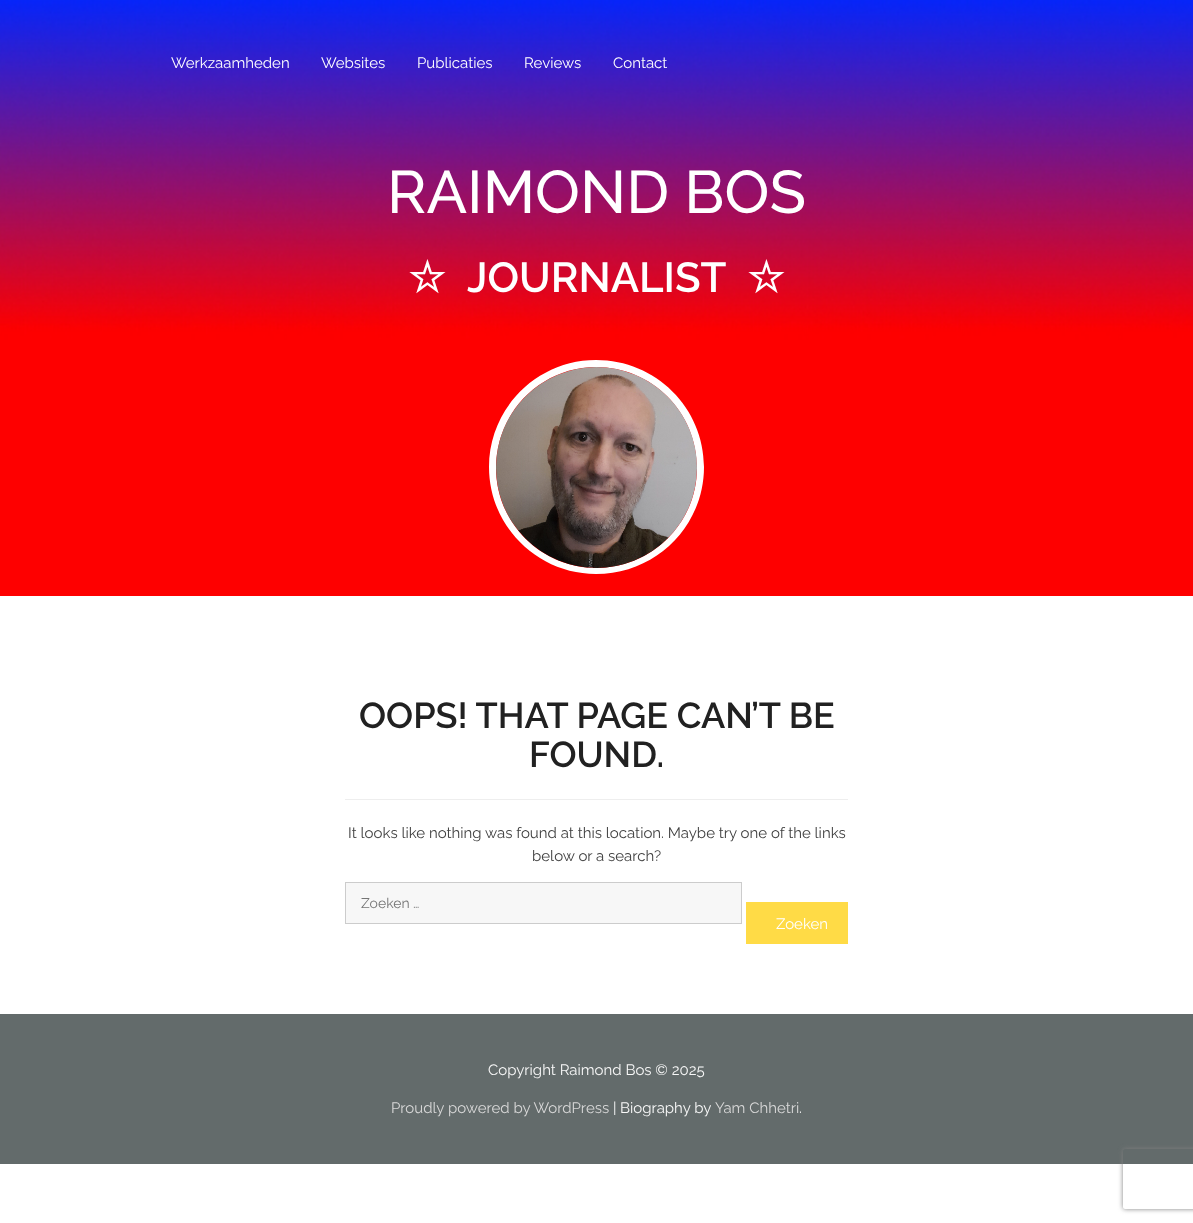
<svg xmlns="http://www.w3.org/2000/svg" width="1193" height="1223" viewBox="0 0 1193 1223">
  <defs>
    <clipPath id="clip1"><path d="M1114 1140H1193V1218H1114ZM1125 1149H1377C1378 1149 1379 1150 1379 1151V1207C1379 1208 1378 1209 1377 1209H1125C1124 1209 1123 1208 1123 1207V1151C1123 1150 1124 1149 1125 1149Z" clip-rule="evenodd"/></clipPath>
  </defs>
  <rect width="100%" height="100%" fill="rgb(255,255,255)"/>
  <image x="0" y="0" width="1193" height="596" href="pic1.png"/>
  <g font-family="Raleway" font-size="15" fill="rgb(255,255,255)">
    <text x="171" y="68">Werkzaamheden</text>
    <text x="321" y="68">Websites</text>
    <text x="417" y="68">Publicaties</text>
    <text x="524" y="68">Reviews</text>
    <text x="613" y="68">Contact</text>
  </g>
  <text x="387" y="213" font-family="Raleway" font-size="60" font-weight="500" fill="rgb(255,255,255)">RAIMOND BOS</text>
  <text x="408" y="292" font-family="DejaVu Sans" font-size="42" font-weight="bold" fill="rgb(255,255,255)">☆</text>
  <text x="467" y="292" font-family="Raleway" font-size="42" font-weight="600" fill="rgb(255,255,255)">JOURNALIST</text>
  <text x="747" y="292" font-family="DejaVu Sans" font-size="42" font-weight="bold" fill="rgb(255,255,255)">☆</text>
  <path d="M596 360C656 360 704 408 704 467C704 526 656 574 596 574C537 574 489 526 489 467C489 408 537 360 596 360ZM596 367C541 367 496 412 496 468C496 523 541 568 596 568C652 568 697 523 697 468C697 412 652 367 596 367Z" fill="rgb(255,255,255)" fill-rule="evenodd"/>
  <image x="496" y="367" width="201" height="201" href="pic2.png"/>
  <rect x="345" y="799" width="503" height="1" fill="rgb(238,238,238)"/>
  <g font-family="Raleway" font-size="36" font-weight="600" fill="rgb(33,33,33)">
    <text x="359" y="728">OOPS! THAT PAGE CAN’T BE</text>
    <text x="529" y="767">FOUND.</text>
  </g>
  <g font-family="Raleway" font-size="15" fill="rgb(65,65,65)">
    <text x="348" y="838">It looks like nothing was found at this location. Maybe try one of the links</text>
    <text x="532" y="861">below or a search?</text>
  </g>
  <rect x="345.5" y="882.5" width="396" height="41" fill="rgb(247,247,247)" stroke="rgb(204,204,204)"/>
  <text x="361" y="908" font-family="Raleway" font-size="14" fill="rgb(117,117,117)">Zoeken …</text>
  <rect x="746" y="902" width="102" height="42" fill="rgb(255,219,70)"/>
  <text x="776" y="929" font-family="Raleway" font-size="15" fill="rgb(255,255,255)">Zoeken</text>
  <rect x="0" y="1014" width="1193" height="150" fill="rgb(99,107,107)"/>
  <text x="488" y="1075" font-family="Raleway" font-size="15" fill="rgb(248,248,248)">Copyright Raimond Bos © 2025</text>
  <text x="391" y="1113" font-family="Raleway" font-size="15" fill="rgb(216,216,216)">Proudly powered by WordPress</text>
  <g font-family="Raleway" font-size="15" fill="rgb(248,248,248)">
    <text x="613" y="1113">|</text>
    <text x="620" y="1113">Biography by</text>
  </g>
  <text x="715" y="1113" font-family="Raleway" font-size="15" fill="rgb(216,216,216)">Yam Chhetri</text>
  <text x="799" y="1113" font-family="Raleway" font-size="15" fill="rgb(248,248,248)">.</text>
  <g clip-path="url(#clip1)">
    <rect x="1123" y="1149" width="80" height="60" rx="2" fill="rgb(128,128,128)" filter="blur(2.5px)"/>
  </g>
</svg>
